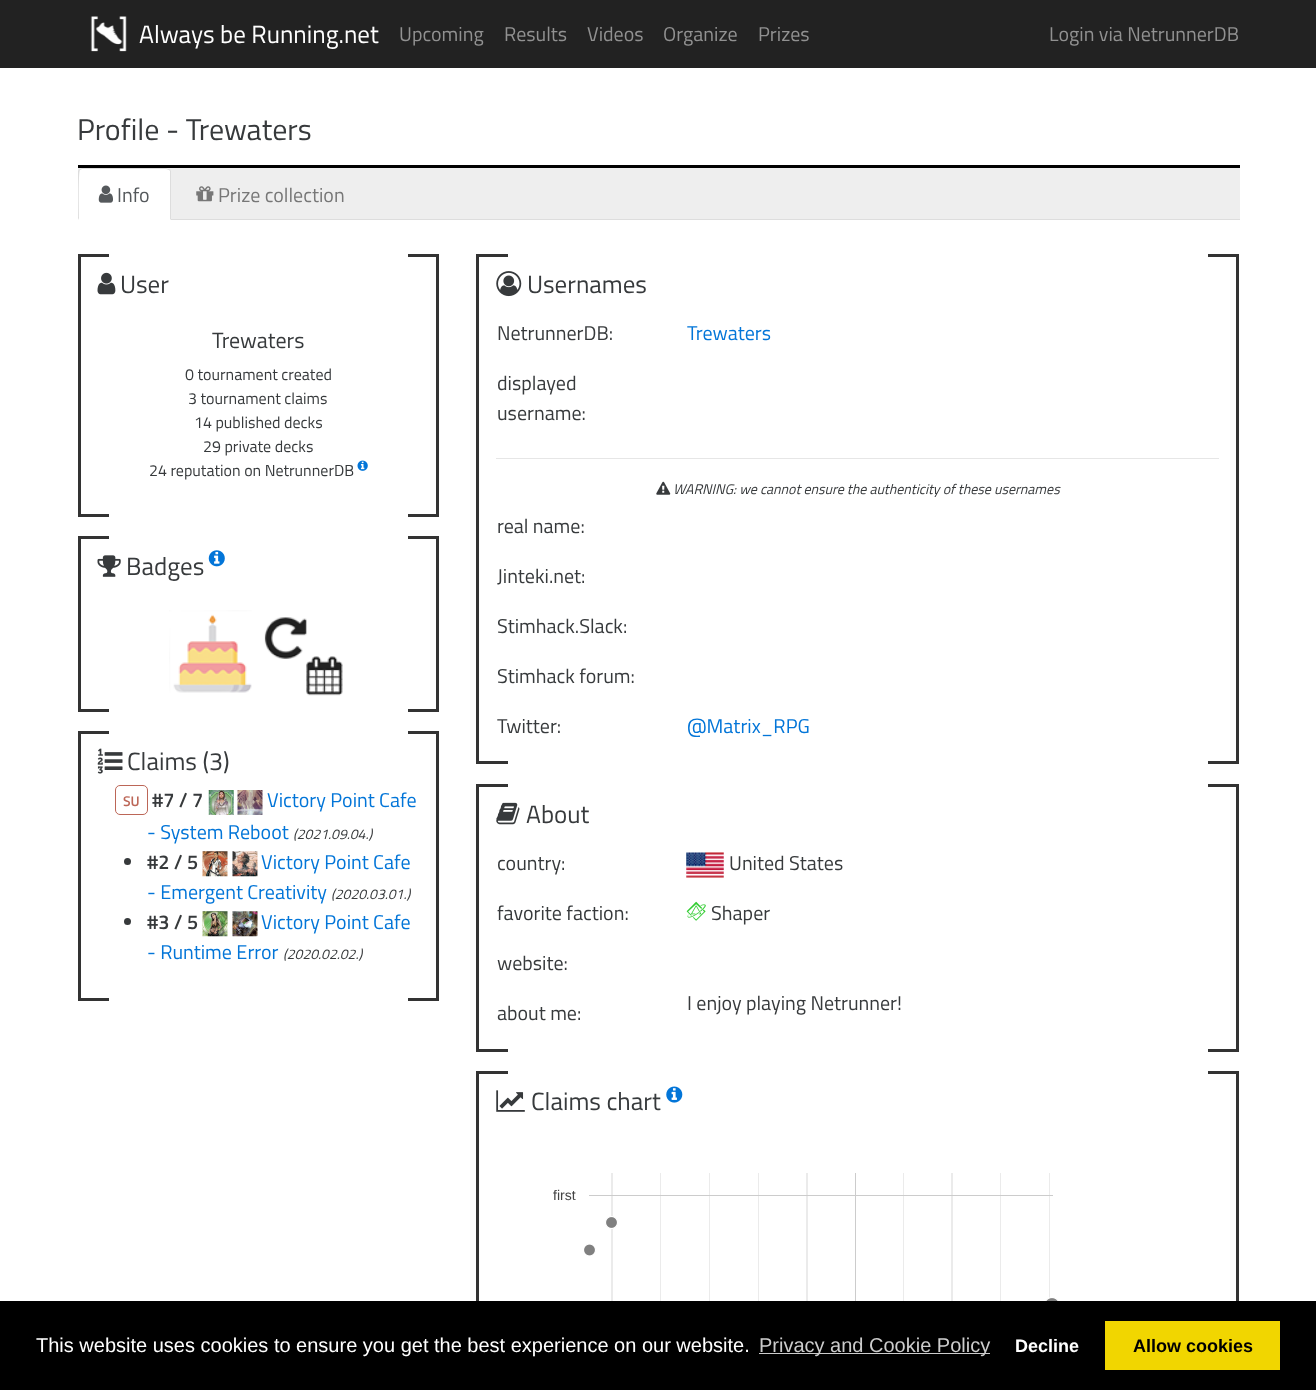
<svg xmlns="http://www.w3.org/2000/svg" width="1316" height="1390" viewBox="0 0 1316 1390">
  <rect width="100%" height="100%" fill="rgb(255,255,255)"/>
  <rect x="0" y="0" width="1316" height="68" fill="rgb(34,34,34)"/>
  <image x="90" y="16" width="37" height="36" href="pic1.png"/>
  <text x="139" y="43" font-family="Titillium Web" font-size="25" fill="rgb(255,255,255)">Always be Running.net</text>
  <g font-family="Titillium Web" font-size="20" fill="rgb(145,145,145)">
    <text x="399" y="41">Upcoming</text>
    <text x="504" y="41">Results</text>
    <text x="587" y="41">Videos</text>
    <text x="663" y="41">Organize</text>
    <text x="758" y="41">Prizes</text>
    <text x="1049" y="41">Login via NetrunnerDB</text>
  </g>
  <rect x="78" y="165" width="1162" height="3" fill="rgb(0,0,0)"/>
  <text x="77" y="140" font-family="Titillium Web" font-size="30" fill="rgb(55,58,60)">Profile - Trewaters</text>
  <rect x="78" y="168" width="1162" height="51" fill="rgb(238,238,238)"/>
  <rect x="171" y="219" width="1069" height="1" fill="rgb(221,221,221)"/>
  <path d="M83 168H166C169 168 171 170 171 173V220H78V173C78 170 80 168 83 168Z" fill="rgb(255,255,255)"/>
  <path d="M82 168L79 169L80 170L82 169H166L169 170L170 169L166 168Z" fill="rgb(221,221,221)"/>
  <path d="M171 220V171L170 169L169 170L170 171V219Z" fill="rgb(221,221,221)"/>
  <path d="M79 169L78 171V220L79 218C79 213 78 172 80 170Z" fill="rgb(221,221,221)"/>
  <image x="98" y="185" width="15" height="18" href="pic2.png"/>
  <text x="117" y="202" font-family="Titillium Web" font-size="20" fill="rgb(85,89,92)">Info</text>
  <image x="196" y="186" width="18" height="16" href="pic3.png"/>
  <text x="218" y="202" font-family="Titillium Web" font-size="20" fill="rgb(119,119,119)">Prize collection</text>
  <rect x="78" y="254" width="31" height="3" fill="rgb(51,51,51)"/>
  <rect x="78" y="514" width="31" height="3" fill="rgb(51,51,51)"/>
  <rect x="78" y="254" width="3" height="262" fill="rgb(51,51,51)"/>
  <image x="97" y="272" width="19" height="23" href="pic4.png"/>
  <text x="120" y="293" font-family="Titillium Web" font-size="25" fill="rgb(55,58,60)">User</text>
  <rect x="408" y="254" width="31" height="3" fill="rgb(51,51,51)"/>
  <rect x="436" y="254" width="3" height="262" fill="rgb(51,51,51)"/>
  <rect x="408" y="514" width="31" height="3" fill="rgb(51,51,51)"/>
  <text x="212" y="348" font-family="Titillium Web" font-size="22" fill="rgb(55,58,60)">Trewaters</text>
  <g font-family="Titillium Web" font-size="16" fill="rgb(55,58,60)">
    <text x="185" y="380">0 tournament created</text>
    <text x="188" y="404">3 tournament claims</text>
    <text x="194" y="428">14 published decks</text>
    <text x="203" y="452">29 private decks</text>
    <text x="149" y="476">24 reputation on NetrunnerDB</text>
  </g>
  <image x="357" y="460" width="11" height="11" href="pic5.png"/>
  <rect x="78" y="536" width="31" height="3" fill="rgb(51,51,51)"/>
  <rect x="78" y="709" width="31" height="3" fill="rgb(51,51,51)"/>
  <rect x="78" y="536" width="3" height="175" fill="rgb(51,51,51)"/>
  <image x="97" y="555" width="24" height="22" href="pic6.png"/>
  <text x="126" y="575" font-family="Titillium Web" font-size="25" fill="rgb(55,58,60)">Badges</text>
  <image x="208" y="550" width="17" height="17" href="pic7.png"/>
  <rect x="408" y="536" width="31" height="3" fill="rgb(51,51,51)"/>
  <rect x="436" y="536" width="3" height="175" fill="rgb(51,51,51)"/>
  <rect x="408" y="709" width="31" height="3" fill="rgb(51,51,51)"/>
  <image x="169" y="610" width="83" height="83" href="pic8.png"/>
  <image x="264" y="617" width="79" height="79" href="pic9.png"/>
  <rect x="78" y="731" width="31" height="3" fill="rgb(51,51,51)"/>
  <rect x="78" y="998" width="31" height="3" fill="rgb(51,51,51)"/>
  <rect x="78" y="731" width="3" height="269" fill="rgb(51,51,51)"/>
  <image x="97" y="748" width="26" height="26" href="pic10.png"/>
  <text x="127" y="770" font-family="Titillium Web" font-size="25" fill="rgb(55,58,60)">Claims (3)</text>
  <rect x="408" y="731" width="31" height="3" fill="rgb(51,51,51)"/>
  <rect x="436" y="731" width="3" height="269" fill="rgb(51,51,51)"/>
  <rect x="408" y="998" width="31" height="3" fill="rgb(51,51,51)"/>
  <rect x="115.5" y="785.5" width="32" height="29" rx="4.5" fill="none" stroke="rgb(188,102,87)"/>
  <text x="123" y="806" font-family="Titillium Web" font-size="14" font-weight="600" fill="rgb(188,102,87)">SU</text>
  <text x="152" y="807" font-family="Titillium Web" font-size="20" font-weight="600" fill="rgb(55,58,60)">#7 / 7</text>
  <image x="208" y="790" width="26" height="25" href="pic11.png"/>
  <image x="237" y="790" width="26" height="25" href="pic12.png"/>
  <g font-family="Titillium Web" font-size="20" fill="rgb(2,117,216)">
    <text x="267" y="807">Victory Point Cafe</text>
    <text x="147" y="839">- System Reboot</text>
  </g>
  <text x="293" y="839" font-family="Titillium Web" font-size="14" font-style="italic" fill="rgb(55,58,60)">(2021.09.04.)</text>
  <circle cx="127.5" cy="861.5" r="3.5" fill="rgb(55,58,60)"/>
  <text x="147" y="869" font-family="Titillium Web" font-size="20" font-weight="600" fill="rgb(55,58,60)">#2 / 5</text>
  <image x="202" y="851" width="26" height="26" href="pic13.png"/>
  <image x="232" y="851" width="26" height="26" href="pic14.png"/>
  <g font-family="Titillium Web" font-size="20" fill="rgb(2,117,216)">
    <text x="261" y="869">Victory Point Cafe</text>
    <text x="147" y="899">- Emergent Creativity</text>
  </g>
  <text x="331" y="899" font-family="Titillium Web" font-size="14" font-style="italic" fill="rgb(55,58,60)">(2020.03.01.)</text>
  <circle cx="127.5" cy="921.5" r="3.5" fill="rgb(55,58,60)"/>
  <text x="147" y="929" font-family="Titillium Web" font-size="20" font-weight="600" fill="rgb(55,58,60)">#3 / 5</text>
  <image x="202" y="911" width="26" height="26" href="pic15.png"/>
  <image x="232" y="911" width="26" height="26" href="pic16.png"/>
  <g font-family="Titillium Web" font-size="20" fill="rgb(2,117,216)">
    <text x="261" y="929">Victory Point Cafe</text>
    <text x="147" y="959">- Runtime Error</text>
  </g>
  <text x="283" y="959" font-family="Titillium Web" font-size="14" font-style="italic" fill="rgb(55,58,60)">(2020.02.02.)</text>
  <rect x="476" y="254" width="32" height="3" fill="rgb(51,51,51)"/>
  <rect x="476" y="761" width="32" height="3" fill="rgb(51,51,51)"/>
  <rect x="476" y="254" width="3" height="510" fill="rgb(51,51,51)"/>
  <image x="496" y="271" width="26" height="26" href="pic17.png"/>
  <text x="527" y="293" font-family="Titillium Web" font-size="25" fill="rgb(55,58,60)">Usernames</text>
  <rect x="1208" y="254" width="31" height="3" fill="rgb(51,51,51)"/>
  <rect x="1236" y="254" width="3" height="510" fill="rgb(51,51,51)"/>
  <rect x="1208" y="761" width="31" height="3" fill="rgb(51,51,51)"/>
  <text x="497" y="340" font-family="Titillium Web" font-size="20" fill="rgb(55,58,60)">NetrunnerDB:</text>
  <text x="687" y="340" font-family="Titillium Web" font-size="20" fill="rgb(2,117,216)">Trewaters</text>
  <g font-family="Titillium Web" font-size="20" fill="rgb(55,58,60)">
    <text>
      <tspan x="497" y="390">displayed</tspan>
      <tspan x="497" y="420">username:</tspan>
    </text>
  </g>
  <rect x="496" y="458" width="723" height="1" fill="rgb(230,230,230)"/>
  <image x="656" y="481" width="15" height="14" href="pic18.png"/>
  <text x="673" y="494" font-family="Titillium Web" font-size="14" font-style="italic" fill="rgb(55,58,60)">WARNING: we cannot ensure the authenticity of these usernames</text>
  <g font-family="Titillium Web" font-size="20" fill="rgb(55,58,60)">
    <text x="497" y="533">real name:</text>
    <text x="497" y="583">Jinteki.net:</text>
    <text x="497" y="633">Stimhack.Slack:</text>
    <text x="497" y="683">Stimhack forum:</text>
    <text x="497" y="733">Twitter:</text>
  </g>
  <text x="687" y="733" font-family="Titillium Web" font-size="20" fill="rgb(2,117,216)">@Matrix_RPG</text>
  <rect x="476" y="784" width="32" height="3" fill="rgb(51,51,51)"/>
  <rect x="476" y="1049" width="32" height="3" fill="rgb(51,51,51)"/>
  <rect x="476" y="784" width="3" height="267" fill="rgb(51,51,51)"/>
  <image x="496" y="802" width="24" height="23" href="pic19.png"/>
  <text x="526" y="823" font-family="Titillium Web" font-size="25" fill="rgb(55,58,60)">About</text>
  <rect x="1208" y="784" width="31" height="3" fill="rgb(51,51,51)"/>
  <rect x="1236" y="784" width="3" height="267" fill="rgb(51,51,51)"/>
  <rect x="1208" y="1049" width="31" height="3" fill="rgb(51,51,51)"/>
  <text x="497" y="870" font-family="Titillium Web" font-size="20" fill="rgb(55,58,60)">country:</text>
  <image x="686" y="852" width="38" height="26" href="pic20.png"/>
  <g font-family="Titillium Web" font-size="20" fill="rgb(55,58,60)">
    <text x="729" y="870">United States</text>
    <text x="497" y="920">favorite faction:</text>
  </g>
  <image x="686" y="901" width="20" height="20" href="pic21.png"/>
  <g font-family="Titillium Web" font-size="20" fill="rgb(55,58,60)">
    <text x="711" y="920">Shaper</text>
    <text x="497" y="970">website:</text>
    <text x="497" y="1020">about me:</text>
    <text x="687" y="1010">I enjoy playing Netrunner!</text>
  </g>
  <rect x="476" y="1071" width="32" height="3" fill="rgb(51,51,51)"/>
  <rect x="476" y="1071" width="3" height="230" fill="rgb(51,51,51)"/>
  <image x="496" y="1090" width="29" height="22" href="pic22.png"/>
  <text x="531" y="1110" font-family="Titillium Web" font-size="25" fill="rgb(55,58,60)">Claims chart</text>
  <image x="666" y="1086" width="17" height="17" href="pic23.png"/>
  <rect x="1208" y="1071" width="31" height="3" fill="rgb(51,51,51)"/>
  <rect x="1236" y="1071" width="3" height="230" fill="rgb(51,51,51)"/>
  <text x="553" y="1200" font-family="Liberation Sans" font-size="14" fill="rgb(68,68,68)">first</text>
  <image x="584" y="1173" width="475" height="128" href="pic24.png"/>
  <rect x="0" y="1301" width="1316" height="89" fill="rgb(0,0,0)"/>
  <text x="36" y="1352" font-family="Liberation Sans" font-size="20" fill="rgb(255,255,255)">This website uses cookies to ensure you get the best experience on our website.</text>
  <rect x="759" y="1353" width="231" height="1" fill="rgb(204,204,204)"/>
  <text x="759" y="1352" font-family="Liberation Sans" font-size="20" fill="rgb(204,204,204)">Privacy and Cookie Policy</text>
  <text x="1015" y="1352" font-family="Liberation Sans" font-size="18" font-weight="bold" fill="rgb(255,255,255)">Decline</text>
  <rect x="1105" y="1321" width="175" height="49" fill="rgb(241,214,0)"/>
  <text x="1133" y="1352" font-family="Liberation Sans" font-size="18" font-weight="bold" fill="rgb(0,0,0)">Allow cookies</text>
</svg>
